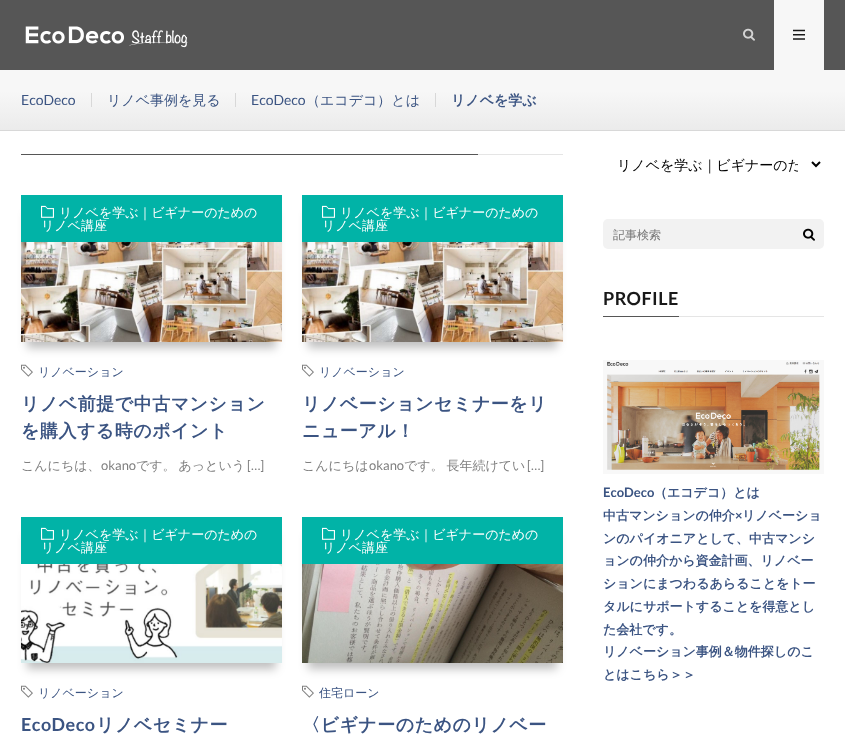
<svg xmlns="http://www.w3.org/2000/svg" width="845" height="736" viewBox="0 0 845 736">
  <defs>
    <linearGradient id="g1" gradientUnits="userSpaceOnUse" x1="423" y1="70" x2="423" y2="130"><stop offset="0" stop-color="rgb(247,247,247)"/><stop offset="0.35" stop-color="rgb(247,247,247)"/><stop offset="1" stop-color="rgb(235,235,235)"/></linearGradient>
    <clipPath id="clip1"><rect x="617" y="155" width="181" height="19"/></clipPath>
  </defs>
  <rect width="100%" height="100%" fill="rgb(255,255,255)"/>
  <rect x="0" y="0" width="845" height="70" fill="rgb(86,86,86)"/>
  <image x="25" y="26" width="163" height="22" href="pic1.png"/>
  <image x="743" y="28" width="12" height="13" href="pic2.png"/>
  <rect x="774" y="0" width="50" height="70" fill="rgb(247,247,247)"/>
  <image x="793" y="29" width="12" height="11" href="pic3.png"/>
  <rect x="0" y="130" width="845" height="1" fill="rgb(216,216,216)"/>
  <rect x="0" y="70" width="845" height="60" fill="url(#g1)"/>
  <text x="21" y="105" font-family="Lato" font-size="14" fill="rgb(59,84,130)">EcoDeco</text>
  <rect x="91" y="93" width="1" height="14" fill="rgb(216,216,216)"/>
  <text x="107" y="105" font-family="WenQuanYi Zen Hei" font-size="14" font-weight="500" fill="rgb(59,84,130)">リノベ事例を見る</text>
  <rect x="235" y="93" width="1" height="14" fill="rgb(216,216,216)"/>
  <text x="251" y="105" font-family="Lato" font-size="14" fill="rgb(59,84,130)">EcoDeco</text>
  <text x="306" y="105" font-family="WenQuanYi Zen Hei" font-size="14" font-weight="500" fill="rgb(59,84,130)">（エコデコ）とは</text>
  <rect x="435" y="93" width="1" height="14" fill="rgb(216,216,216)"/>
  <text x="451" y="105" font-family="WenQuanYi Zen Hei" font-size="14" font-weight="bold" fill="rgb(59,84,130)">リノベを学ぶ</text>
  <rect x="21" y="154" width="457" height="1" fill="rgb(86,86,86)"/>
  <rect x="478" y="154" width="85" height="1" fill="rgb(229,229,229)"/>
  <rect x="27" y="213" width="249" height="135" fill="rgba(0,0,0,0.25)" filter="blur(5px)"/>
  <rect x="21" y="195" width="261" height="47" fill="rgb(1,179,167)"/>
  <image x="41" y="205" width="13" height="13" href="pic4.png"/>
  <g font-family="WenQuanYi Zen Hei" font-size="13" font-weight="500" fill="rgb(255,255,255)">
    <text x="59" y="217">リノベを学ぶ｜ビギナーのための</text>
    <text x="41" y="230">リノベ講座</text>
  </g>
  <image x="21" y="242" width="261" height="100" href="pic5.png"/>
  <image x="21" y="364" width="12" height="13" href="pic6.png"/>
  <text x="38" y="376" font-family="WenQuanYi Zen Hei" font-size="12" font-weight="500" fill="rgb(59,84,130)">リノベーション</text>
  <g font-family="WenQuanYi Zen Hei" font-size="18" font-weight="bold" letter-spacing="0.5" fill="rgb(59,84,130)">
    <text>
      <tspan x="21" y="410">リノベ前提で中古マンション</tspan>
      <tspan x="21" y="437">を購入する時のポイント</tspan>
    </text>
  </g>
  <text x="21" y="470" font-family="WenQuanYi Zen Hei" font-size="13" font-weight="500" fill="rgb(127,127,127)">こんにちは、</text>
  <text x="101" y="470" font-family="Lato" font-size="13" fill="rgb(127,127,127)">okano</text>
  <text x="136" y="470" word-spacing="-1" font-family="WenQuanYi Zen Hei" font-size="13" font-weight="500" fill="rgb(127,127,127)">です。 あっという</text>
  <text x="247" y="470" font-family="Lato" font-size="13" fill="rgb(127,127,127)">[…]</text>
  <rect x="308" y="213" width="249" height="135" fill="rgba(0,0,0,0.25)" filter="blur(5px)"/>
  <rect x="302" y="195" width="261" height="47" fill="rgb(1,179,167)"/>
  <image x="322" y="205" width="13" height="13" href="pic4.png"/>
  <g font-family="WenQuanYi Zen Hei" font-size="13" font-weight="500" fill="rgb(255,255,255)">
    <text x="340" y="217">リノベを学ぶ｜ビギナーのための</text>
    <text x="322" y="230">リノベ講座</text>
  </g>
  <image x="302" y="242" width="261" height="100" href="pic5.png"/>
  <image x="302" y="364" width="12" height="13" href="pic6.png"/>
  <text x="319" y="376" font-family="WenQuanYi Zen Hei" font-size="12" font-weight="500" fill="rgb(59,84,130)">リノベーション</text>
  <g font-family="WenQuanYi Zen Hei" font-size="18" font-weight="bold" letter-spacing="0.5" fill="rgb(59,84,130)">
    <text>
      <tspan x="302" y="410">リノベーションセミナーをリ</tspan>
      <tspan x="302" y="437">ニューアル！</tspan>
    </text>
  </g>
  <text x="302" y="470" font-family="WenQuanYi Zen Hei" font-size="13" font-weight="500" fill="rgb(127,127,127)">こんにちは</text>
  <text x="369" y="470" font-family="Lato" font-size="13" fill="rgb(127,127,127)">okano</text>
  <text x="404" y="470" word-spacing="-1" font-family="WenQuanYi Zen Hei" font-size="13" font-weight="500" fill="rgb(127,127,127)">です。 長年続けてい</text>
  <text x="527" y="470" font-family="Lato" font-size="13" fill="rgb(127,127,127)">[…]</text>
  <rect x="27" y="535" width="249" height="134" fill="rgba(0,0,0,0.25)" filter="blur(5px)"/>
  <rect x="21" y="517" width="261" height="47" fill="rgb(1,179,167)"/>
  <image x="41" y="527" width="13" height="13" href="pic4.png"/>
  <g font-family="WenQuanYi Zen Hei" font-size="13" font-weight="500" fill="rgb(255,255,255)">
    <text x="59" y="539">リノベを学ぶ｜ビギナーのための</text>
    <text x="41" y="552">リノベ講座</text>
  </g>
  <image x="21" y="564" width="261" height="99" href="pic7.png"/>
  <image x="21" y="685" width="12" height="13" href="pic6.png"/>
  <text x="38" y="697" font-family="WenQuanYi Zen Hei" font-size="12" font-weight="500" fill="rgb(59,84,130)">リノベーション</text>
  <text x="21" y="731" font-family="Lato" font-size="18" font-weight="bold" letter-spacing="0.5" fill="rgb(59,84,130)">EcoDeco</text>
  <text x="96" y="731" font-family="WenQuanYi Zen Hei" font-size="18" font-weight="bold" letter-spacing="0.5" fill="rgb(59,84,130)">リノベセミナー</text>
  <rect x="308" y="535" width="249" height="134" fill="rgba(0,0,0,0.25)" filter="blur(5px)"/>
  <rect x="302" y="517" width="261" height="47" fill="rgb(1,179,167)"/>
  <image x="322" y="527" width="13" height="13" href="pic4.png"/>
  <g font-family="WenQuanYi Zen Hei" font-size="13" font-weight="500" fill="rgb(255,255,255)">
    <text x="340" y="539">リノベを学ぶ｜ビギナーのための</text>
    <text x="322" y="552">リノベ講座</text>
  </g>
  <image x="302" y="564" width="261" height="99" href="pic8.png"/>
  <image x="302" y="685" width="12" height="13" href="pic6.png"/>
  <text x="319" y="697" font-family="WenQuanYi Zen Hei" font-size="12" font-weight="500" fill="rgb(59,84,130)">住宅ローン</text>
  <text x="302" y="731" font-family="WenQuanYi Zen Hei" font-size="18" font-weight="bold" letter-spacing="0.5" fill="rgb(59,84,130)">〈ビギナーのためのリノベー</text>
  <path d="M812 162L816 166L820 162" fill="none" stroke="rgb(0,0,0)" stroke-width="2"/>
  <g clip-path="url(#clip1)">
    <text x="617" y="170" font-family="WenQuanYi Zen Hei" font-size="14" font-weight="500" fill="rgb(0,0,0)">リノベを学ぶ｜ビギナーのた</text>
  </g>
  <rect x="603" y="219" width="221" height="30" rx="5" fill="rgb(242,242,242)"/>
  <text x="613" y="239" font-family="WenQuanYi Zen Hei" font-size="12" font-weight="500" fill="rgb(117,117,117)">記事検索</text>
  <image x="803" y="228" width="12" height="13" href="pic9.png"/>
  <text x="603" y="305" font-family="Lato" font-size="18" font-weight="bold" letter-spacing="0.5" fill="rgb(25,25,25)">PROFILE</text>
  <rect x="603" y="316" width="76" height="1" fill="rgb(86,86,86)"/>
  <rect x="679" y="316" width="145" height="1" fill="rgb(229,229,229)"/>
  <image x="603" y="360" width="221" height="114" href="pic10.png"/>
  <text x="603" y="497" font-family="Lato" font-size="13" font-weight="bold" fill="rgb(59,84,130)">EcoDeco</text>
  <g font-family="WenQuanYi Zen Hei" font-size="13" font-weight="bold" fill="rgb(59,84,130)">
    <text x="654" y="497">（エコデコ）とは</text>
    <text x="603" y="520">中古マンションの仲介</text>
  </g>
  <text x="735" y="520" font-family="Lato" font-size="13" font-weight="bold" fill="rgb(59,84,130)">×</text>
  <g font-family="WenQuanYi Zen Hei" font-size="13" font-weight="bold" fill="rgb(59,84,130)">
    <text x="742" y="520">リノベーショ</text>
    <text>
      <tspan x="603" y="543">ンのパイオニアとして、中古マンシ</tspan>
      <tspan x="603" y="565">ョンの仲介から資金計画、リノベー</tspan>
      <tspan x="603" y="588">ションにまつわるあらることをトー</tspan>
      <tspan x="603" y="611">タルにサポートすることを得意とし</tspan>
      <tspan x="603" y="634">た会社です。</tspan>
      <tspan x="603" y="656">リノベーション事例＆物件探しのこ</tspan>
      <tspan x="603" y="679">とはこちら＞＞</tspan>
    </text>
  </g>
</svg>
